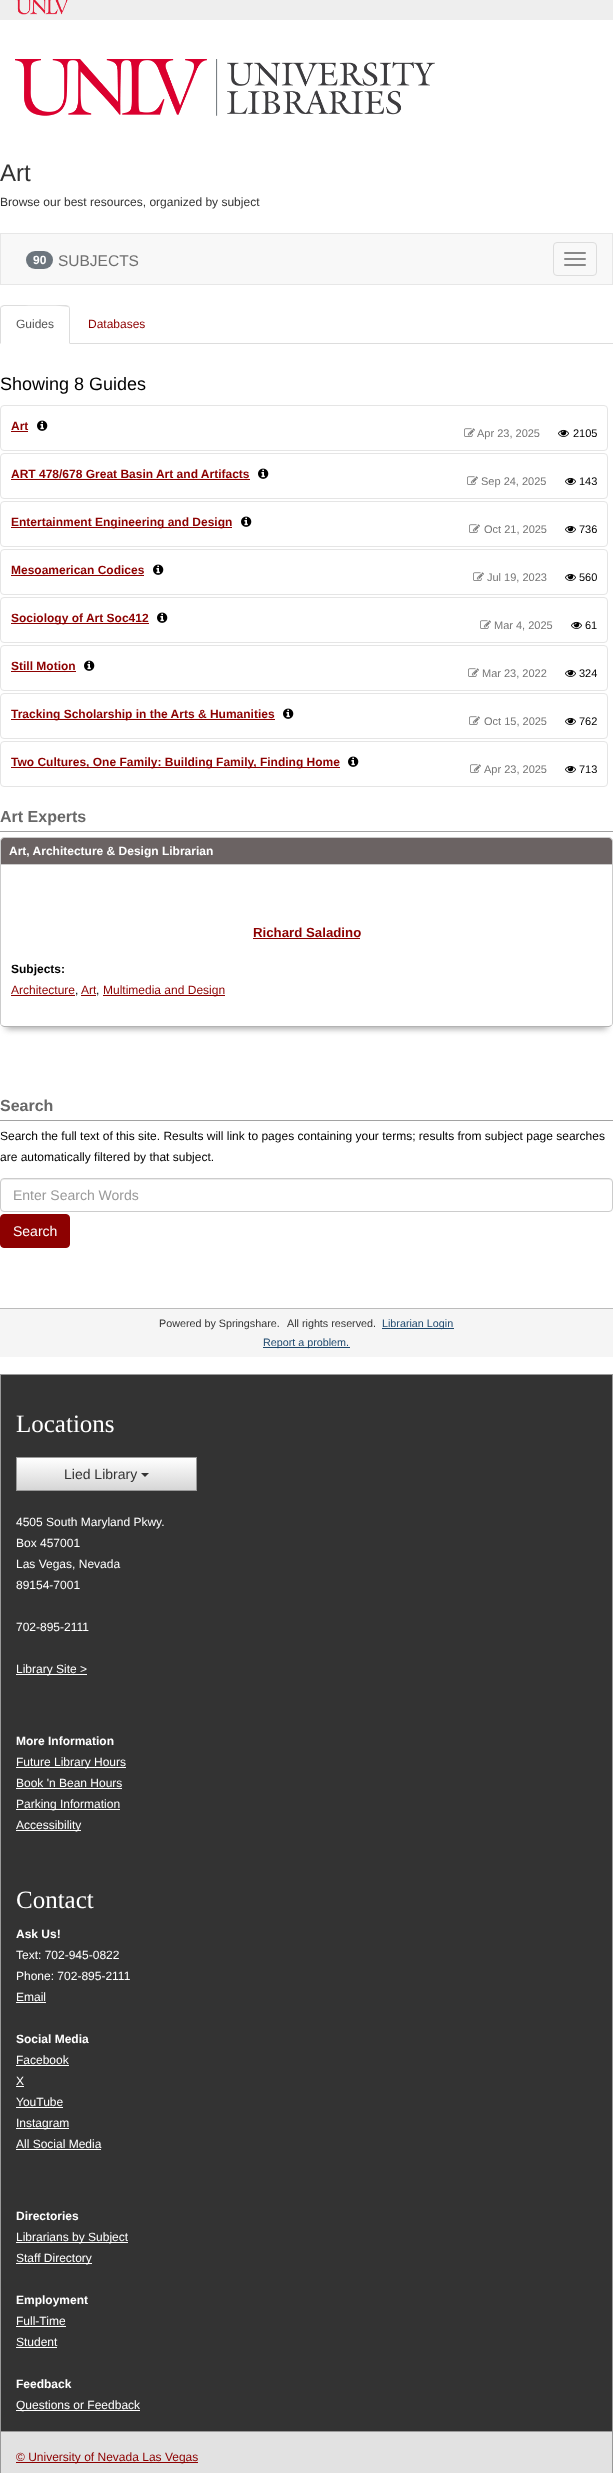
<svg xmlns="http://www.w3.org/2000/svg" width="613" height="2473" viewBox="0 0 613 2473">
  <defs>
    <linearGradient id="g1" gradientUnits="userSpaceOnUse" x1="107" y1="1458" x2="107" y2="1490"><stop offset="0" stop-color="rgb(255,255,255)"/><stop offset="1" stop-color="rgb(214,214,214)"/></linearGradient>
  </defs>
  <rect width="100%" height="100%" fill="rgb(255,255,255)"/>
  <rect x="0" y="0" width="613" height="20" fill="rgb(238,238,238)"/>
  <image x="17" y="0" width="51" height="15" href="pic1.png"/>
  <image x="15" y="59" width="420" height="57" href="pic2.png"/>
  <text x="0" y="181" font-family="Liberation Sans" font-size="24" fill="rgb(51,51,51)">Art</text>
  <text x="0" y="206" font-family="Liberation Sans" font-size="12" fill="rgb(51,51,51)">Browse our best resources, organized by subject</text>
  <rect x="0.5" y="233.5" width="612" height="51" fill="rgb(248,248,248)" stroke="rgb(231,231,231)"/>
  <rect x="26" y="251" width="27" height="18" rx="9" fill="rgb(108,117,125)"/>
  <text x="33" y="264" font-family="Liberation Sans" font-size="12" font-weight="bold" fill="rgb(255,255,255)">90</text>
  <text x="58" y="266" font-family="Liberation Sans" font-size="15.5" fill="rgb(112,112,112)">SUBJECTS</text>
  <rect x="553.5" y="242.5" width="43" height="33" rx="3.5" fill="none" stroke="rgb(221,221,221)"/>
  <rect x="564" y="252" width="22" height="2" rx="1" fill="rgb(136,136,136)"/>
  <rect x="564" y="258" width="22" height="2" rx="1" fill="rgb(136,136,136)"/>
  <rect x="564" y="264" width="22" height="2" rx="1" fill="rgb(136,136,136)"/>
  <rect x="70" y="343" width="543" height="1" fill="rgb(221,221,221)"/>
  <path d="M4 305L1 306L2 307L4 306H14C20 306 66 305 68 307L69 306L66 305Z" fill="rgb(221,221,221)"/>
  <path d="M70 344V309C70 308 69.5 307 69 306L68 307C69 307 69 308 69 309V343Z" fill="rgb(221,221,221)"/>
  <path d="M0 344L1 343V309C1 308 1 307 2 307L1 306C.5 307 0 308 0 309Z" fill="rgb(221,221,221)"/>
  <text x="16" y="328" font-family="Liberation Sans" font-size="12" fill="rgb(85,85,85)">Guides</text>
  <text x="88" y="328" font-family="Liberation Sans" font-size="12" fill="rgb(141,1,1)">Databases</text>
  <text x="0" y="390" font-family="Liberation Sans" font-size="18" fill="rgb(0,0,0)">Showing 8 Guides</text>
  <rect x="0.5" y="405.5" width="607" height="45" rx="3.5" fill="none" stroke="rgb(229,229,229)"/>
  <text x="11" y="430" font-family="Liberation Sans" font-size="12" font-weight="bold" fill="rgb(141,1,1)">Art</text>
  <rect x="11" y="431" width="17" height="1" fill="rgb(141,1,1)"/>
  <image x="37" y="420" width="11" height="11" href="pic3.png"/>
  <image x="464" y="428" width="11" height="9" href="pic4.png"/>
  <text x="477" y="437" font-family="Liberation Sans" font-size="11" fill="rgb(118,118,118)">Apr 23, 2025</text>
  <image x="558" y="429" width="11" height="8" href="pic5.png"/>
  <text x="573" y="437" font-family="Liberation Sans" font-size="11" fill="rgb(0,0,0)">2105</text>
  <rect x="0.5" y="453.5" width="607" height="45" rx="3.5" fill="none" stroke="rgb(229,229,229)"/>
  <text x="11" y="478" font-family="Liberation Sans" font-size="12" font-weight="bold" fill="rgb(141,1,1)">ART 478/678 Great Basin Art and Artifacts</text>
  <rect x="11" y="479" width="239" height="1" fill="rgb(141,1,1)"/>
  <image x="258" y="468" width="11" height="11" href="pic3.png"/>
  <image x="467" y="476" width="11" height="9" href="pic4.png"/>
  <text x="481" y="485" font-family="Liberation Sans" font-size="11" fill="rgb(118,118,118)">Sep 24, 2025</text>
  <image x="565" y="477" width="11" height="8" href="pic5.png"/>
  <text x="579" y="485" font-family="Liberation Sans" font-size="11" fill="rgb(0,0,0)">143</text>
  <rect x="0.5" y="501.5" width="607" height="45" rx="3.5" fill="none" stroke="rgb(229,229,229)"/>
  <rect x="11" y="527" width="221" height="1" fill="rgb(141,1,1)"/>
  <text x="11" y="526" font-family="Liberation Sans" font-size="12" font-weight="bold" fill="rgb(141,1,1)">Entertainment Engineering and Design</text>
  <image x="241" y="516" width="11" height="11" href="pic3.png"/>
  <image x="469" y="524" width="11" height="9" href="pic4.png"/>
  <text x="484" y="533" font-family="Liberation Sans" font-size="11" fill="rgb(118,118,118)">Oct 21, 2025</text>
  <image x="565" y="525" width="11" height="8" href="pic5.png"/>
  <text x="579" y="533" font-family="Liberation Sans" font-size="11" fill="rgb(0,0,0)">736</text>
  <rect x="0.5" y="549.5" width="607" height="45" rx="3.5" fill="none" stroke="rgb(229,229,229)"/>
  <text x="11" y="574" font-family="Liberation Sans" font-size="12" font-weight="bold" fill="rgb(141,1,1)">Mesoamerican Codices</text>
  <rect x="11" y="575" width="133" height="1" fill="rgb(141,1,1)"/>
  <image x="153" y="564" width="11" height="11" href="pic3.png"/>
  <image x="473" y="572" width="11" height="9" href="pic4.png"/>
  <text x="487" y="581" font-family="Liberation Sans" font-size="11" fill="rgb(118,118,118)">Jul 19, 2023</text>
  <image x="565" y="573" width="11" height="8" href="pic5.png"/>
  <text x="579" y="581" font-family="Liberation Sans" font-size="11" fill="rgb(0,0,0)">560</text>
  <rect x="0.5" y="597.5" width="607" height="45" rx="3.5" fill="none" stroke="rgb(229,229,229)"/>
  <rect x="11" y="623" width="138" height="1" fill="rgb(141,1,1)"/>
  <text x="11" y="622" font-family="Liberation Sans" font-size="12" font-weight="bold" fill="rgb(141,1,1)">Sociology of Art Soc412</text>
  <image x="157" y="612" width="11" height="11" href="pic3.png"/>
  <image x="480" y="620" width="11" height="9" href="pic4.png"/>
  <text x="494" y="629" font-family="Liberation Sans" font-size="11" fill="rgb(118,118,118)">Mar 4, 2025</text>
  <image x="571" y="621" width="11" height="8" href="pic5.png"/>
  <text x="585" y="629" font-family="Liberation Sans" font-size="11" fill="rgb(0,0,0)">61</text>
  <rect x="0.5" y="645.5" width="607" height="45" rx="3.5" fill="none" stroke="rgb(229,229,229)"/>
  <text x="11" y="670" font-family="Liberation Sans" font-size="12" font-weight="bold" fill="rgb(141,1,1)">Still Motion</text>
  <rect x="11" y="671" width="65" height="1" fill="rgb(141,1,1)"/>
  <image x="84" y="660" width="11" height="11" href="pic3.png"/>
  <image x="468" y="668" width="11" height="9" href="pic4.png"/>
  <text x="482" y="677" font-family="Liberation Sans" font-size="11" fill="rgb(118,118,118)">Mar 23, 2022</text>
  <image x="565" y="669" width="11" height="8" href="pic5.png"/>
  <text x="579" y="677" font-family="Liberation Sans" font-size="11" fill="rgb(0,0,0)">324</text>
  <rect x="0.5" y="693.5" width="607" height="45" rx="3.5" fill="none" stroke="rgb(229,229,229)"/>
  <rect x="11" y="719" width="264" height="1" fill="rgb(141,1,1)"/>
  <text x="11" y="718" font-family="Liberation Sans" font-size="12" font-weight="bold" fill="rgb(141,1,1)">Tracking Scholarship in the Arts &amp; Humanities</text>
  <image x="283" y="708" width="11" height="11" href="pic3.png"/>
  <image x="469" y="716" width="11" height="9" href="pic4.png"/>
  <text x="484" y="725" font-family="Liberation Sans" font-size="11" fill="rgb(118,118,118)">Oct 15, 2025</text>
  <image x="565" y="717" width="11" height="8" href="pic5.png"/>
  <text x="579" y="725" font-family="Liberation Sans" font-size="11" fill="rgb(0,0,0)">762</text>
  <rect x="0.5" y="741.5" width="607" height="45" rx="3.5" fill="none" stroke="rgb(229,229,229)"/>
  <rect x="11" y="767" width="329" height="1" fill="rgb(141,1,1)"/>
  <text x="11" y="766" font-family="Liberation Sans" font-size="12" font-weight="bold" fill="rgb(141,1,1)">Two Cultures, One Family: Building Family, Finding Home</text>
  <image x="348" y="756" width="11" height="11" href="pic3.png"/>
  <image x="470" y="764" width="11" height="9" href="pic4.png"/>
  <text x="484" y="773" font-family="Liberation Sans" font-size="11" fill="rgb(118,118,118)">Apr 23, 2025</text>
  <image x="565" y="765" width="11" height="8" href="pic5.png"/>
  <text x="579" y="773" font-family="Liberation Sans" font-size="11" fill="rgb(0,0,0)">713</text>
  <rect x="0" y="831" width="613" height="1" fill="rgb(162,162,162)"/>
  <text x="0" y="822" font-family="Liberation Sans" font-size="16" font-weight="bold" fill="rgb(104,104,104)">Art Experts</text>
  <rect x="6" y="851" width="601" height="178" fill="rgb(170,170,170)" filter="blur(3px)"/>
  <rect x="0" y="837" width="613" height="190" rx="4" fill="rgb(255,255,255)"/>
  <path d="M611.5 1025.5L609 1026.5H4L1.5 1025.5" fill="none" stroke="rgb(179,179,179)"/>
  <path d="M1.5 1025.5C1 1025 .5 1024 .5 1023V841C.5 840 1 839 1.5 838.5C2 838 3 837.5 4 837.5H609C610 837.5 611 838 611.5 838.5C612 839 612.5 840 612.5 841V1023C612.5 1024 612 1025 611.5 1025.5" fill="none" stroke="rgb(204,204,204)"/>
  <path d="M4 838H609C610.5 838 612 839.5 612 841V865H1V841C1 839.5 2.5 838 4 838Z" fill="rgb(107,99,99)"/>
  <rect x="1" y="864" width="611" height="1" fill="rgb(204,204,204)"/>
  <text x="9" y="855" font-family="Liberation Sans" font-size="12" font-weight="bold" fill="rgb(255,255,255)">Art, Architecture &amp; Design Librarian</text>
  <text x="253" y="937" font-family="Liberation Sans" font-size="13.25" font-weight="bold" fill="rgb(141,1,1)">Richard Saladino</text>
  <rect x="253" y="938" width="107" height="1" fill="rgb(141,1,1)"/>
  <text x="11" y="973" font-family="Liberation Sans" font-size="12" font-weight="bold" fill="rgb(0,0,0)">Subjects:</text>
  <text x="11" y="994" font-family="Liberation Sans" font-size="12" fill="rgb(141,1,1)">Architecture</text>
  <rect x="11" y="995" width="64" height="1" fill="rgb(141,1,1)"/>
  <text x="75" y="994" font-family="Liberation Sans" font-size="12" fill="rgb(0,0,0)">,</text>
  <text x="81" y="994" font-family="Liberation Sans" font-size="12" fill="rgb(141,1,1)">Art</text>
  <rect x="81" y="995" width="15" height="1" fill="rgb(141,1,1)"/>
  <text x="96" y="994" font-family="Liberation Sans" font-size="12" fill="rgb(0,0,0)">,</text>
  <rect x="103" y="995" width="122" height="1" fill="rgb(141,1,1)"/>
  <text x="103" y="994" font-family="Liberation Sans" font-size="12" fill="rgb(141,1,1)">Multimedia and Design</text>
  <rect x="0" y="1120" width="613" height="1" fill="rgb(162,162,162)"/>
  <text x="0" y="1111" font-family="Liberation Sans" font-size="16" font-weight="bold" fill="rgb(104,104,104)">Search</text>
  <g font-family="Liberation Sans" font-size="12" fill="rgb(0,0,0)">
    <text>
      <tspan x="0" y="1140">Search the full text of this site. Results will link to pages containing your terms; results from subject page searches</tspan>
      <tspan x="0" y="1161">are automatically filtered by that subject.</tspan>
    </text>
  </g>
  <path d="M4 1180H609C611 1180 612 1181 612 1183V1182C612 1180 611 1179 609 1179H4C2 1179 1 1180 1 1182V1183C1 1181 2 1180 4 1180Z" fill="rgb(236,236,236)"/>
  <rect x="0.5" y="1178.5" width="612" height="33" rx="3.5" fill="none" stroke="rgb(204,204,204)"/>
  <text x="13" y="1200" font-family="Liberation Sans" font-size="14" fill="rgb(153,153,153)">Enter Search Words</text>
  <rect x="0.5" y="1214.5" width="69" height="33" rx="3.5" fill="rgb(141,1,1)" stroke="rgb(141,1,1)"/>
  <text x="13" y="1236" font-family="Liberation Sans" font-size="14" fill="rgb(255,255,255)">Search</text>
  <rect x="0" y="1309" width="613" height="48" fill="rgb(245,245,245)"/>
  <rect x="0" y="1308" width="613" height="1" fill="rgb(187,187,187)"/>
  <g font-family="Liberation Sans" font-size="10.75" fill="rgb(51,51,51)">
    <text x="159" y="1327">Powered by Springshare.</text>
    <text x="287" y="1327">All rights reserved.</text>
  </g>
  <rect x="382" y="1328" width="72" height="1" fill="rgb(31,73,110)"/>
  <text x="382" y="1327" font-family="Liberation Sans" font-size="10.75" fill="rgb(31,73,110)">Librarian Login</text>
  <rect x="263" y="1347" width="87" height="1" fill="rgb(31,73,110)"/>
  <text x="263" y="1346" font-family="Liberation Sans" font-size="10.75" fill="rgb(31,73,110)">Report a problem.</text>
  <rect x="0.5" y="1374.5" width="612" height="1057" fill="rgb(51,51,51)" stroke="rgb(153,153,153)"/>
  <text x="16" y="1432" font-family="Liberation Serif" font-size="25" fill="rgb(255,255,255)">Locations</text>
  <rect x="17" y="1458" width="179" height="32" fill="url(#g1)"/>
  <rect x="16.5" y="1457.5" width="180" height="33" fill="none" stroke="rgb(153,153,153)"/>
  <text x="64" y="1479" font-family="Liberation Sans" font-size="14" fill="rgb(51,51,51)">Lied Library</text>
  <path d="M141 1473H149L145 1477Z" fill="rgb(51,51,51)"/>
  <g font-family="Liberation Sans" font-size="12" fill="rgb(255,255,255)">
    <text>
      <tspan x="16" y="1526">4505 South Maryland Pkwy.</tspan>
      <tspan x="16" y="1547">Box 457001</tspan>
      <tspan x="16" y="1568">Las Vegas, Nevada</tspan>
      <tspan x="16" y="1589">89154-7001</tspan>
    </text>
    <text x="16" y="1631">702-895-2111</text>
  </g>
  <rect x="16" y="1674" width="71" height="1" fill="rgb(255,255,255)"/>
  <text x="16" y="1673" font-family="Liberation Sans" font-size="12" fill="rgb(255,255,255)">Library Site &gt;</text>
  <text x="16" y="1745" font-family="Liberation Sans" font-size="12" font-weight="bold" fill="rgb(255,255,255)">More Information</text>
  <rect x="16" y="1767" width="110" height="1" fill="rgb(255,255,255)"/>
  <g font-family="Liberation Sans" font-size="12" fill="rgb(255,255,255)">
    <text>
      <tspan x="16" y="1766">Future Library Hours</tspan>
      <tspan x="16" y="1787">Book 'n Bean Hours</tspan>
    </text>
  </g>
  <rect x="16" y="1788" width="106" height="1" fill="rgb(255,255,255)"/>
  <rect x="16" y="1809" width="104" height="1" fill="rgb(255,255,255)"/>
  <text x="16" y="1808" font-family="Liberation Sans" font-size="12" fill="rgb(255,255,255)">Parking Information</text>
  <rect x="16" y="1830" width="65" height="1" fill="rgb(255,255,255)"/>
  <text x="16" y="1829" font-family="Liberation Sans" font-size="12" fill="rgb(255,255,255)">Accessibility</text>
  <text x="16" y="1908" font-family="Liberation Serif" font-size="25" fill="rgb(255,255,255)">Contact</text>
  <text x="16" y="1938" font-family="Liberation Sans" font-size="12" font-weight="bold" fill="rgb(255,255,255)">Ask Us!</text>
  <g font-family="Liberation Sans" font-size="12" fill="rgb(255,255,255)">
    <text>
      <tspan x="16" y="1959">Text: 702-945-0822</tspan>
      <tspan x="16" y="1980">Phone: 702-895-2111</tspan>
      <tspan x="16" y="2001">Email</tspan>
    </text>
  </g>
  <rect x="16" y="2002" width="30" height="1" fill="rgb(255,255,255)"/>
  <text x="16" y="2043" font-family="Liberation Sans" font-size="12" font-weight="bold" fill="rgb(255,255,255)">Social Media</text>
  <text x="16" y="2064" font-family="Liberation Sans" font-size="12" fill="rgb(255,255,255)">Facebook</text>
  <rect x="16" y="2065" width="53" height="1" fill="rgb(255,255,255)"/>
  <text x="16" y="2085" font-family="Liberation Sans" font-size="12" fill="rgb(255,255,255)">X</text>
  <rect x="16" y="2086" width="8" height="1" fill="rgb(255,255,255)"/>
  <text x="16" y="2106" font-family="Liberation Sans" font-size="12" fill="rgb(255,255,255)">YouTube</text>
  <rect x="16" y="2107" width="47" height="1" fill="rgb(255,255,255)"/>
  <rect x="16" y="2128" width="53" height="1" fill="rgb(255,255,255)"/>
  <g font-family="Liberation Sans" font-size="12" fill="rgb(255,255,255)">
    <text>
      <tspan x="16" y="2127">Instagram</tspan>
      <tspan x="16" y="2148">All Social Media</tspan>
    </text>
  </g>
  <rect x="16" y="2149" width="85" height="1" fill="rgb(255,255,255)"/>
  <text x="16" y="2220" font-family="Liberation Sans" font-size="12" font-weight="bold" fill="rgb(255,255,255)">Directories</text>
  <rect x="16" y="2242" width="112" height="1" fill="rgb(255,255,255)"/>
  <text x="16" y="2241" font-family="Liberation Sans" font-size="12" fill="rgb(255,255,255)">Librarians by Subject</text>
  <rect x="16" y="2263" width="76" height="1" fill="rgb(255,255,255)"/>
  <text x="16" y="2262" font-family="Liberation Sans" font-size="12" fill="rgb(255,255,255)">Staff Directory</text>
  <text x="16" y="2304" font-family="Liberation Sans" font-size="12" font-weight="bold" fill="rgb(255,255,255)">Employment</text>
  <text x="16" y="2325" font-family="Liberation Sans" font-size="12" fill="rgb(255,255,255)">Full-Time</text>
  <rect x="16" y="2326" width="50" height="1" fill="rgb(255,255,255)"/>
  <text x="16" y="2346" font-family="Liberation Sans" font-size="12" fill="rgb(255,255,255)">Student</text>
  <rect x="16" y="2347" width="41" height="1" fill="rgb(255,255,255)"/>
  <text x="16" y="2388" font-family="Liberation Sans" font-size="12" font-weight="bold" fill="rgb(255,255,255)">Feedback</text>
  <rect x="16" y="2410" width="124" height="1" fill="rgb(255,255,255)"/>
  <text x="16" y="2409" font-family="Liberation Sans" font-size="12" fill="rgb(255,255,255)">Questions or Feedback</text>
  <rect x="1" y="2432" width="611" height="41" fill="rgb(226,226,226)"/>
  <rect x="612" y="2432" width="1" height="41" fill="rgb(153,153,153)"/>
  <rect x="0" y="2432" width="1" height="41" fill="rgb(153,153,153)"/>
  <rect x="16" y="2462" width="182" height="1" fill="rgb(141,1,1)"/>
  <text x="16" y="2461" font-family="Liberation Sans" font-size="12" fill="rgb(141,1,1)">© University of Nevada Las Vegas</text>
</svg>
